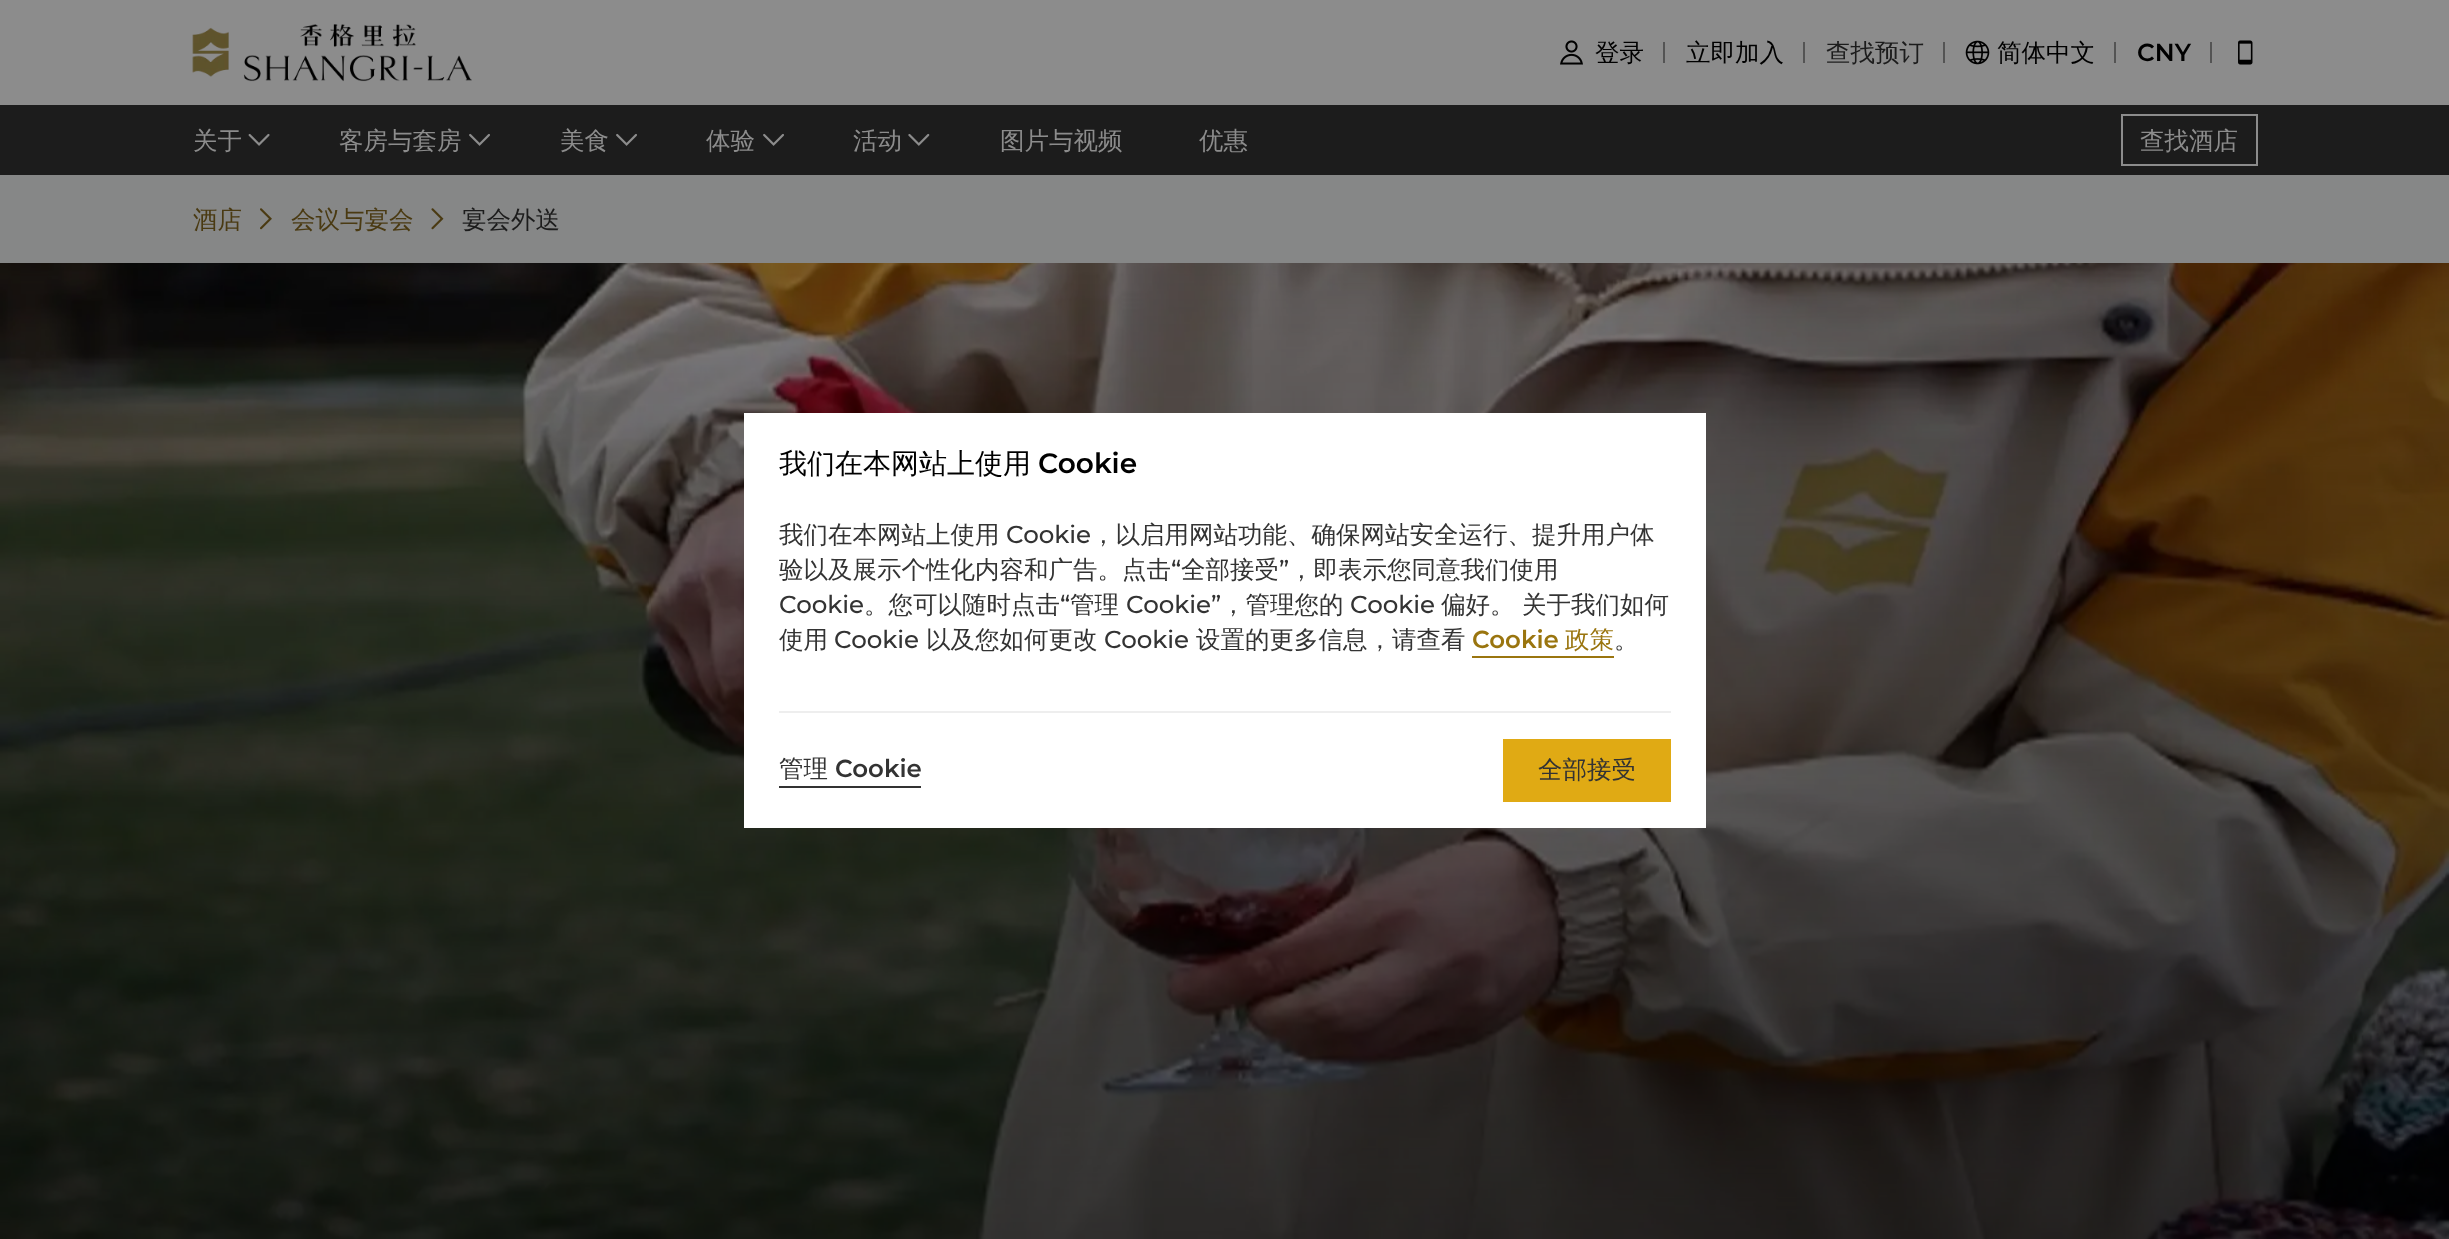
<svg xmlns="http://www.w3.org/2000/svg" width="2449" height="1239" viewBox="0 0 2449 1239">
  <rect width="100%" height="100%" fill="rgb(140,140,140)"/>
  <image x="192" y="24" width="280" height="58" href="pic1.png"/>
  <image x="1560" y="40" width="23" height="25" href="pic2.png"/>
  <text x="1595" y="61" font-family="WenQuanYi Zen Hei" font-size="24.5" font-weight="500" fill="rgb(0,0,0)">登录</text>
  <rect x="1663" y="42" width="2" height="21" fill="rgb(84,84,84)"/>
  <text x="1686" y="61" font-family="WenQuanYi Zen Hei" font-size="24.5" font-weight="500" fill="rgb(0,0,0)">立即加入</text>
  <rect x="1803" y="42" width="2" height="21" fill="rgb(84,84,84)"/>
  <text x="1826" y="61" font-family="WenQuanYi Zen Hei" font-size="24.5" font-weight="500" fill="rgb(28,28,28)">查找预订</text>
  <rect x="1943" y="42" width="2" height="21" fill="rgb(84,84,84)"/>
  <image x="1965" y="40" width="25" height="25" href="pic3.png"/>
  <text x="1997" y="61" font-family="WenQuanYi Zen Hei" font-size="24.5" font-weight="500" fill="rgb(0,0,0)">简体中文</text>
  <rect x="2114" y="42" width="2" height="21" fill="rgb(84,84,84)"/>
  <text x="2137" y="61" font-family="Montserrat" font-size="24.5" font-weight="600" fill="rgb(0,0,0)">CNY</text>
  <rect x="2210" y="42" width="2" height="21" fill="rgb(84,84,84)"/>
  <image x="2238" y="40" width="15" height="25" href="pic4.png"/>
  <rect x="0" y="105" width="2449" height="70" fill="rgb(28,28,28)"/>
  <text x="193" y="149" font-family="WenQuanYi Zen Hei" font-size="24.5" font-weight="500" fill="rgb(140,140,140)">关于</text>
  <image x="248" y="133" width="22" height="13" href="pic5.png"/>
  <text x="339" y="149" font-family="WenQuanYi Zen Hei" font-size="24.5" font-weight="500" fill="rgb(140,140,140)">客房与套房</text>
  <image x="469" y="133" width="21" height="13" href="pic6.png"/>
  <text x="560" y="149" font-family="WenQuanYi Zen Hei" font-size="24.5" font-weight="500" fill="rgb(140,140,140)">美食</text>
  <image x="616" y="133" width="21" height="13" href="pic6.png"/>
  <text x="706" y="149" font-family="WenQuanYi Zen Hei" font-size="24.5" font-weight="500" fill="rgb(140,140,140)">体验</text>
  <image x="763" y="133" width="21" height="13" href="pic6.png"/>
  <text x="853" y="149" font-family="WenQuanYi Zen Hei" font-size="24.5" font-weight="500" fill="rgb(140,140,140)">活动</text>
  <image x="908" y="133" width="22" height="13" href="pic7.png"/>
  <g font-family="WenQuanYi Zen Hei" font-size="24.5" font-weight="500" fill="rgb(140,140,140)">
    <text x="1000" y="149">图片与视频</text>
    <text x="1199" y="149">优惠</text>
  </g>
  <rect x="2122" y="115" width="135" height="50" fill="none" stroke="rgb(140,140,140)" stroke-width="2"/>
  <text x="2140" y="149" font-family="WenQuanYi Zen Hei" font-size="24.5" font-weight="500" fill="rgb(140,140,140)">查找酒店</text>
  <rect x="0" y="175" width="2449" height="88" fill="rgb(134,135,135)"/>
  <text x="193" y="228" font-family="WenQuanYi Zen Hei" font-size="24.5" font-weight="500" fill="rgb(74,58,18)">酒店</text>
  <image x="260" y="208" width="12" height="22" href="pic8.png"/>
  <text x="291" y="228" font-family="WenQuanYi Zen Hei" font-size="24.5" font-weight="500" fill="rgb(74,58,18)">会议与宴会</text>
  <image x="431" y="208" width="13" height="22" href="pic9.png"/>
  <text x="462" y="228" font-family="WenQuanYi Zen Hei" font-size="24.5" font-weight="500" fill="rgb(28,28,28)">宴会外送</text>
  <image x="0" y="263" width="2449" height="976" href="pic10.png"/>
  <rect x="744" y="413" width="962" height="415" fill="rgb(255,255,255)"/>
  <text x="779" y="473" font-family="WenQuanYi Zen Hei" font-size="28" font-weight="500" fill="rgb(0,0,0)">我们在本网站上使用</text>
  <text x="1038" y="473" font-family="Montserrat" font-size="28" font-weight="600" fill="rgb(0,0,0)">Cookie</text>
  <text x="779" y="543" font-family="WenQuanYi Zen Hei" font-size="24.5" font-weight="500" fill="rgb(51,51,51)">我们在本网站上使用</text>
  <text x="1006" y="543" font-family="Montserrat" font-size="24.5" font-weight="500" fill="rgb(51,51,51)">Cookie</text>
  <g font-family="WenQuanYi Zen Hei" font-size="24.5" font-weight="500" fill="rgb(51,51,51)">
    <text x="1091" y="543">，以启用网站功能、确保网站安全运行、提升用户体</text>
    <text x="779" y="578">验以及展示个性化内容和广告。点击</text>
  </g>
  <text x="1171" y="578" font-family="Montserrat" font-size="24.5" font-weight="500" fill="rgb(51,51,51)">“</text>
  <text x="1181" y="578" font-family="WenQuanYi Zen Hei" font-size="24.5" font-weight="500" fill="rgb(51,51,51)">全部接受</text>
  <text x="1279" y="578" font-family="Montserrat" font-size="24.5" font-weight="500" fill="rgb(51,51,51)">”</text>
  <text x="1289" y="578" font-family="WenQuanYi Zen Hei" font-size="24.5" font-weight="500" fill="rgb(51,51,51)">，即表示您同意我们使用</text>
  <text x="779" y="613" font-family="Montserrat" font-size="24.5" font-weight="500" fill="rgb(51,51,51)">Cookie</text>
  <text x="864" y="613" font-family="WenQuanYi Zen Hei" font-size="24.5" font-weight="500" fill="rgb(51,51,51)">。您可以随时点击</text>
  <text x="1060" y="613" font-family="Montserrat" font-size="24.5" font-weight="500" fill="rgb(51,51,51)">“</text>
  <text x="1070" y="613" font-family="WenQuanYi Zen Hei" font-size="24.5" font-weight="500" fill="rgb(51,51,51)">管理</text>
  <text x="1126" y="613" font-family="Montserrat" font-size="24.5" font-weight="500" fill="rgb(51,51,51)">Cookie”</text>
  <text x="1221" y="613" font-family="WenQuanYi Zen Hei" font-size="24.5" font-weight="500" fill="rgb(51,51,51)">，管理您的</text>
  <text x="1350" y="613" font-family="Montserrat" font-size="24.5" font-weight="500" fill="rgb(51,51,51)">Cookie</text>
  <g font-family="WenQuanYi Zen Hei" font-size="24.5" font-weight="500" fill="rgb(51,51,51)">
    <text x="1441" y="613">偏好。</text>
    <text x="1522" y="613">关于我们如何</text>
    <text x="779" y="648">使用</text>
  </g>
  <text x="834" y="648" font-family="Montserrat" font-size="24.5" font-weight="500" fill="rgb(51,51,51)">Cookie</text>
  <text x="926" y="648" font-family="WenQuanYi Zen Hei" font-size="24.5" font-weight="500" fill="rgb(51,51,51)">以及您如何更改</text>
  <text x="1104" y="648" font-family="Montserrat" font-size="24.5" font-weight="500" fill="rgb(51,51,51)">Cookie</text>
  <text x="1196" y="648" font-family="WenQuanYi Zen Hei" font-size="24.5" font-weight="500" fill="rgb(51,51,51)">设置的更多信息，请查看</text>
  <text x="1472" y="648" font-family="Montserrat" font-size="24.5" font-weight="600" fill="rgb(154,117,15)">Cookie</text>
  <text x="1565" y="648" font-family="WenQuanYi Zen Hei" font-size="24.5" font-weight="500" fill="rgb(154,117,15)">政策</text>
  <rect x="1472" y="656" width="142" height="2" fill="rgb(154,117,15)"/>
  <text x="1614" y="648" font-family="WenQuanYi Zen Hei" font-size="24.5" font-weight="500" fill="rgb(51,51,51)">。</text>
  <rect x="779" y="711" width="892" height="2" fill="rgb(238,238,238)"/>
  <rect x="779" y="786" width="142" height="2" fill="rgb(51,51,51)"/>
  <text x="779" y="777" font-family="WenQuanYi Zen Hei" font-size="24.5" font-weight="500" fill="rgb(51,51,51)">管理</text>
  <text x="835" y="777" font-family="Montserrat" font-size="24.5" font-weight="600" fill="rgb(51,51,51)">Cookie</text>
  <rect x="1503" y="739" width="168" height="63" fill="rgb(224,170,20)"/>
  <text x="1538" y="778" font-family="WenQuanYi Zen Hei" font-size="24.5" font-weight="500" fill="rgb(51,51,51)">全部接受</text>
</svg>
